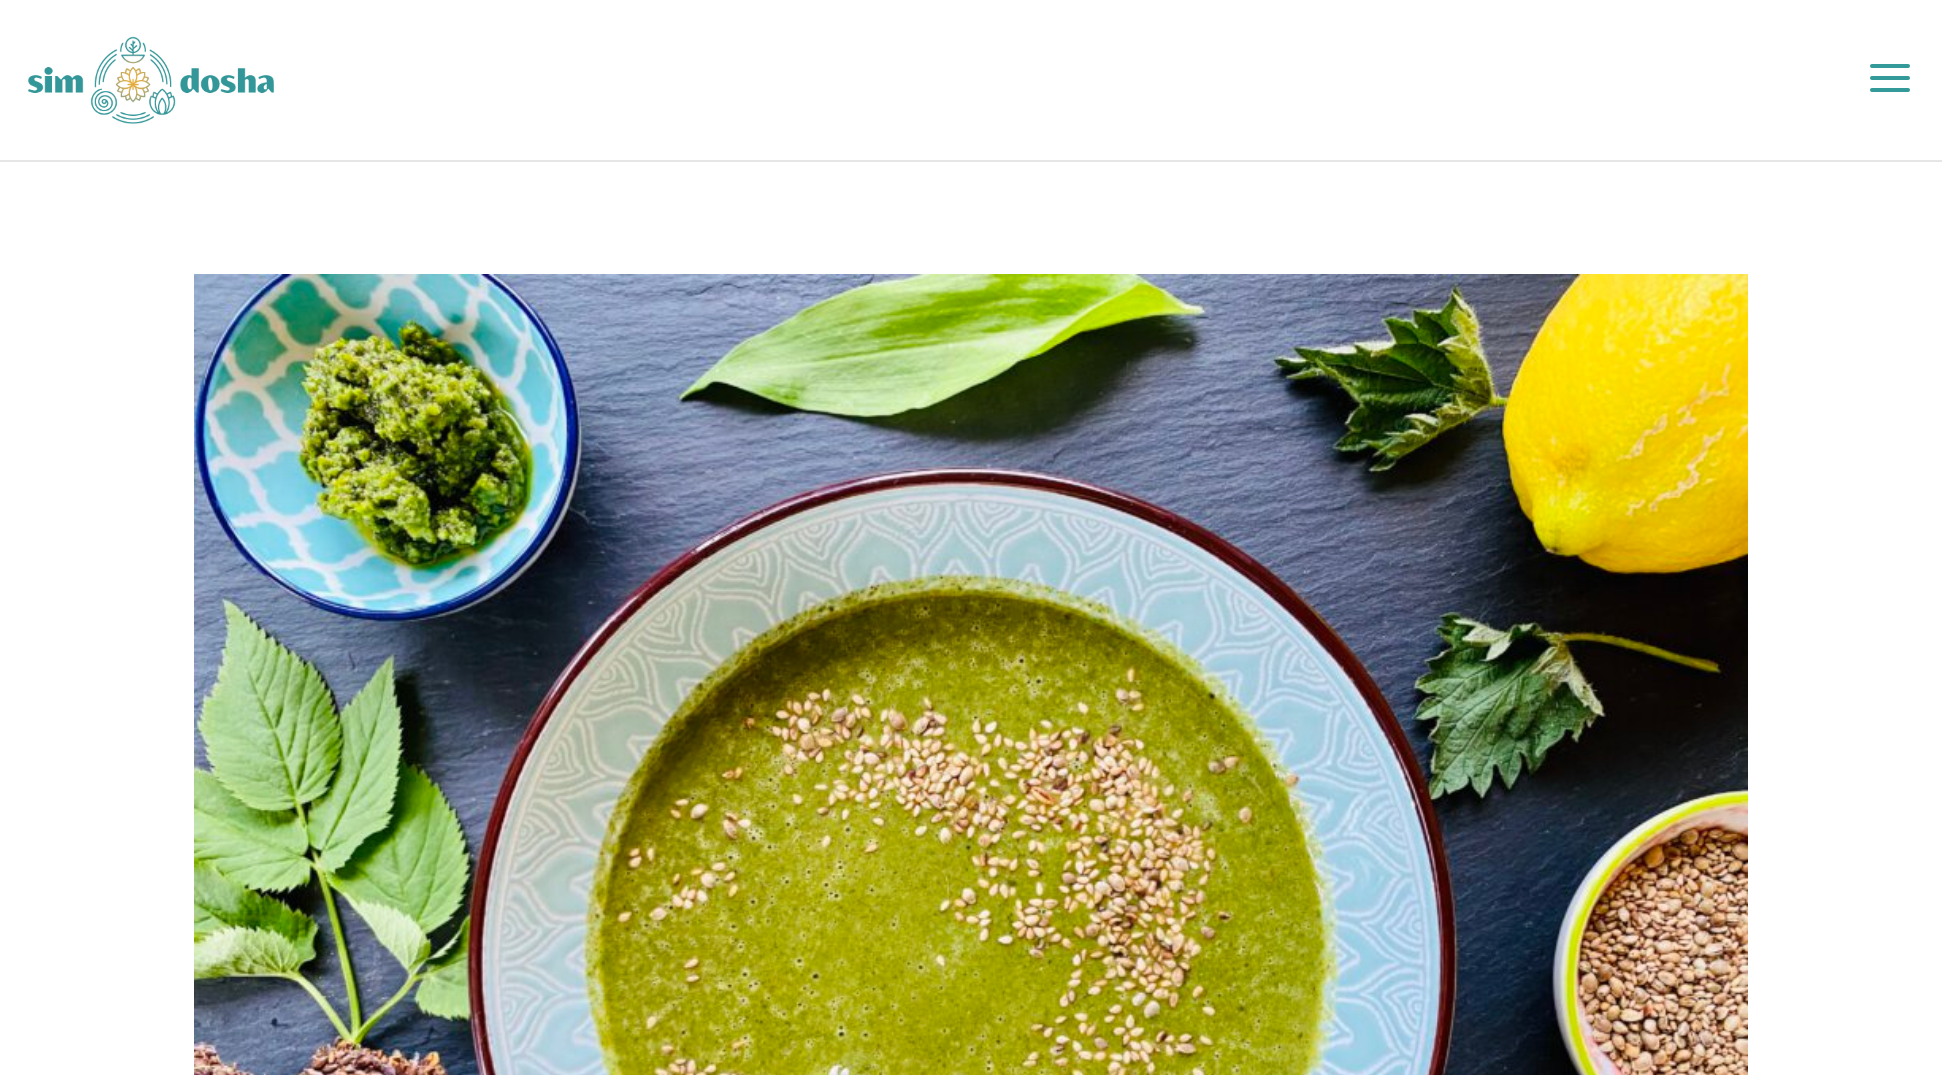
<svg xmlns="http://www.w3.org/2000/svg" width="1942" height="1075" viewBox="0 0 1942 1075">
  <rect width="100%" height="100%" fill="rgb(255,255,255)"/>
  <rect x="0" y="160" width="1942" height="2" fill="rgb(230,230,230)"/>
  <image x="28" y="36" width="246" height="88" href="pic1.png"/>
  <image x="1870" y="64" width="40" height="28" href="pic2.png"/>
  <image x="194" y="274" width="1554" height="801" href="pic3.png"/>
</svg>
